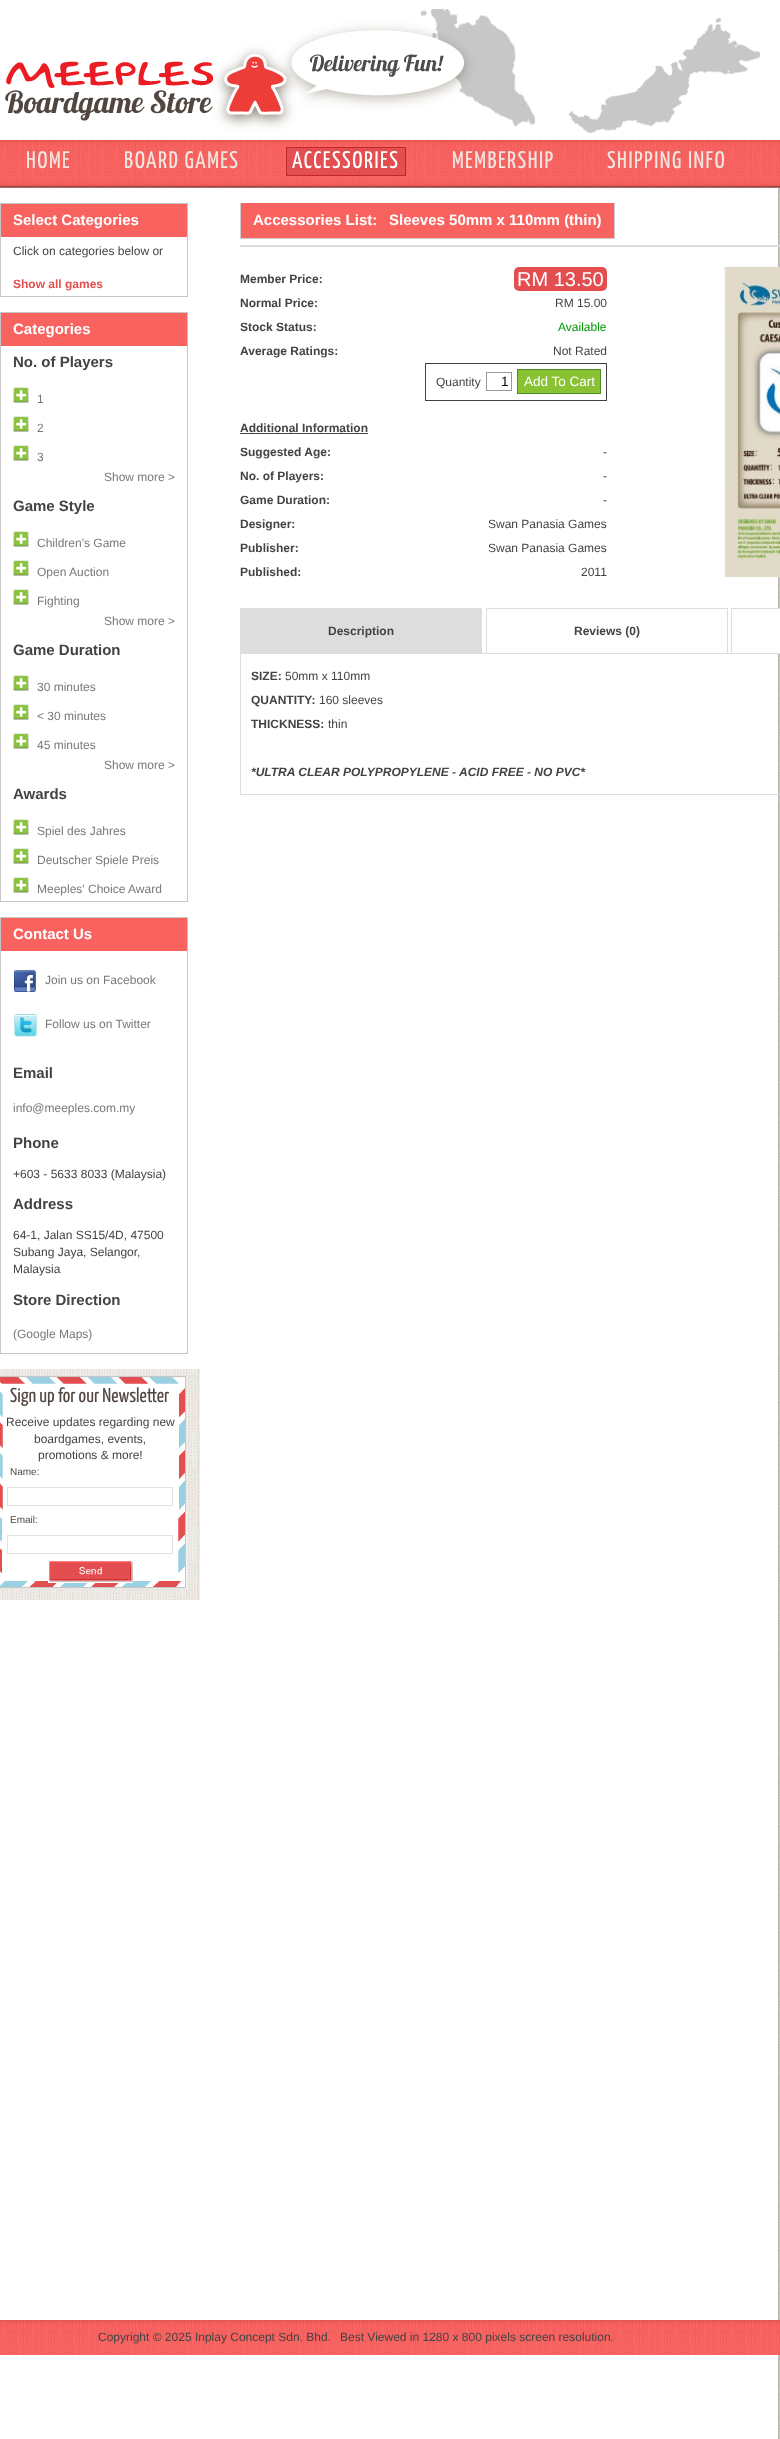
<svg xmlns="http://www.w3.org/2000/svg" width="780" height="2439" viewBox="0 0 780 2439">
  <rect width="100%" height="100%" fill="rgb(255,255,255)"/>
  <image x="0" y="188" width="780" height="2251" href="pic1.png"/>
  <image x="5" y="9" width="755" height="124" href="pic2.png"/>
  <image x="0" y="140" width="780" height="48" href="pic3.png"/>
  <g font-family="Yanone Kaffeesatz" font-size="24" font-weight="200" letter-spacing="1.5" fill="rgb(239,230,223)">
    <text x="26" y="168">HOME</text>
    <text x="124" y="168">BOARD GAMES</text>
  </g>
  <rect x="286.5" y="147.5" width="119" height="28" fill="rgb(227,78,80)" stroke="rgb(193,39,45)"/>
  <text x="292" y="168" font-family="Yanone Kaffeesatz" font-size="24" font-weight="200" letter-spacing="1.5" fill="rgb(255,255,255)">ACCESSORIES</text>
  <g font-family="Yanone Kaffeesatz" font-size="24" font-weight="200" letter-spacing="1.5" fill="rgb(239,230,223)">
    <text x="452" y="168">MEMBERSHIP</text>
    <text x="607" y="168">SHIPPING INFO</text>
  </g>
  <rect x="0.5" y="203.5" width="187" height="93" fill="none" stroke="rgb(198,198,198)"/>
  <rect x="1" y="204" width="186" height="33" fill="rgb(248,99,96)"/>
  <text x="13" y="225" font-family="Liberation Sans" font-size="15" font-weight="bold" fill="rgb(255,255,255)">Select Categories</text>
  <text x="13" y="255" font-family="Liberation Sans" font-size="12" fill="rgb(67,67,67)">Click on categories below or</text>
  <text x="13" y="288" font-family="Liberation Sans" font-size="12" font-weight="bold" fill="rgb(227,78,80)">Show all games</text>
  <rect x="0.5" y="312.5" width="187" height="589" fill="none" stroke="rgb(198,198,198)"/>
  <rect x="1" y="313" width="186" height="33" fill="rgb(248,99,96)"/>
  <text x="13" y="334" font-family="Liberation Sans" font-size="15" font-weight="bold" fill="rgb(255,255,255)">Categories</text>
  <text x="13" y="367" font-family="Liberation Sans" font-size="15" font-weight="bold" fill="rgb(67,67,67)">No. of Players</text>
  <image x="13" y="387" width="16" height="16" href="pic4.png"/>
  <text x="37" y="403" font-family="Liberation Sans" font-size="12" fill="rgb(122,119,119)">1</text>
  <image x="13" y="416" width="16" height="16" href="pic4.png"/>
  <text x="37" y="432" font-family="Liberation Sans" font-size="12" fill="rgb(122,119,119)">2</text>
  <image x="13" y="445" width="16" height="16" href="pic4.png"/>
  <g font-family="Liberation Sans" font-size="12" fill="rgb(122,119,119)">
    <text x="37" y="461">3</text>
    <text x="104" y="481">Show more &gt;</text>
  </g>
  <text x="13" y="511" font-family="Liberation Sans" font-size="15" font-weight="bold" fill="rgb(67,67,67)">Game Style</text>
  <image x="13" y="531" width="16" height="16" href="pic4.png"/>
  <text x="37" y="547" font-family="Liberation Sans" font-size="12" fill="rgb(122,119,119)">Children's Game</text>
  <image x="13" y="560" width="16" height="16" href="pic4.png"/>
  <text x="37" y="576" font-family="Liberation Sans" font-size="12" fill="rgb(122,119,119)">Open Auction</text>
  <image x="13" y="589" width="16" height="16" href="pic4.png"/>
  <g font-family="Liberation Sans" font-size="12" fill="rgb(122,119,119)">
    <text x="37" y="605">Fighting</text>
    <text x="104" y="625">Show more &gt;</text>
  </g>
  <text x="13" y="655" font-family="Liberation Sans" font-size="15" font-weight="bold" fill="rgb(67,67,67)">Game Duration</text>
  <image x="13" y="675" width="16" height="16" href="pic4.png"/>
  <text x="37" y="691" font-family="Liberation Sans" font-size="12" fill="rgb(122,119,119)">30 minutes</text>
  <image x="13" y="704" width="16" height="16" href="pic4.png"/>
  <text x="37" y="720" font-family="Liberation Sans" font-size="12" fill="rgb(122,119,119)">&lt; 30 minutes</text>
  <image x="13" y="733" width="16" height="16" href="pic4.png"/>
  <g font-family="Liberation Sans" font-size="12" fill="rgb(122,119,119)">
    <text x="37" y="749">45 minutes</text>
    <text x="104" y="769">Show more &gt;</text>
  </g>
  <text x="13" y="799" font-family="Liberation Sans" font-size="15" font-weight="bold" fill="rgb(67,67,67)">Awards</text>
  <image x="13" y="819" width="16" height="16" href="pic4.png"/>
  <text x="37" y="835" font-family="Liberation Sans" font-size="12" fill="rgb(122,119,119)">Spiel des Jahres</text>
  <image x="13" y="848" width="16" height="16" href="pic4.png"/>
  <text x="37" y="864" font-family="Liberation Sans" font-size="12" fill="rgb(122,119,119)">Deutscher Spiele Preis</text>
  <image x="13" y="877" width="16" height="16" href="pic4.png"/>
  <text x="37" y="893" font-family="Liberation Sans" font-size="12" fill="rgb(122,119,119)">Meeples' Choice Award</text>
  <rect x="0.5" y="917.5" width="187" height="436" fill="none" stroke="rgb(198,198,198)"/>
  <rect x="1" y="918" width="186" height="33" fill="rgb(248,99,96)"/>
  <text x="13" y="939" font-family="Liberation Sans" font-size="15" font-weight="bold" fill="rgb(255,255,255)">Contact Us</text>
  <image x="13" y="969" width="24" height="24" href="pic5.png"/>
  <text x="45" y="984" font-family="Liberation Sans" font-size="12" fill="rgb(122,119,119)">Join us on Facebook</text>
  <image x="14" y="1013" width="24" height="24" href="pic6.png"/>
  <text x="45" y="1028" font-family="Liberation Sans" font-size="12" fill="rgb(122,119,119)">Follow us on Twitter</text>
  <text x="13" y="1078" font-family="Liberation Sans" font-size="15" font-weight="bold" fill="rgb(67,67,67)">Email</text>
  <text x="13" y="1112" font-family="Liberation Sans" font-size="12" fill="rgb(122,119,119)">info@meeples.com.my</text>
  <text x="13" y="1148" font-family="Liberation Sans" font-size="15" font-weight="bold" fill="rgb(67,67,67)">Phone</text>
  <text x="13" y="1178" font-family="Liberation Sans" font-size="12" fill="rgb(67,67,67)">+603 - 5633 8033 (Malaysia)</text>
  <text x="13" y="1209" font-family="Liberation Sans" font-size="15" font-weight="bold" fill="rgb(67,67,67)">Address</text>
  <g font-family="Liberation Sans" font-size="12" fill="rgb(67,67,67)">
    <text>
      <tspan x="13" y="1239">64-1, Jalan SS15/4D, 47500</tspan>
      <tspan x="13" y="1256">Subang Jaya, Selangor,</tspan>
      <tspan x="13" y="1273">Malaysia</tspan>
    </text>
  </g>
  <text x="13" y="1305" font-family="Liberation Sans" font-size="15" font-weight="bold" fill="rgb(67,67,67)">Store Direction</text>
  <text x="13" y="1338" font-family="Liberation Sans" font-size="12" fill="rgb(122,119,119)">(Google Maps)</text>
  <image x="0" y="1369" width="200" height="231" href="pic7.png"/>
  <text x="10" y="1402" font-family="Yanone Kaffeesatz" font-size="20" font-weight="200" fill="rgb(83,71,65)">Sign up for our Newsletter</text>
  <g font-family="Liberation Sans" font-size="12" fill="rgb(67,67,67)">
    <text x="6" y="1426">Receive updates regarding new</text>
    <text x="34" y="1443">boardgames, events,</text>
    <text x="38" y="1459">promotions &amp; more!</text>
  </g>
  <text x="10" y="1475" font-family="Liberation Sans" font-size="10" fill="rgb(83,71,65)">Name:</text>
  <rect x="7.5" y="1487.5" width="165" height="18" fill="none" stroke="rgb(232,225,217)"/>
  <text x="10" y="1523" font-family="Liberation Sans" font-size="10" fill="rgb(83,71,65)">Email:</text>
  <rect x="7.5" y="1535.5" width="165" height="18" fill="none" stroke="rgb(232,225,217)"/>
  <image x="48" y="1561" width="85" height="22" href="pic8.png"/>
  <rect x="240" y="245" width="540" height="2" fill="rgb(221,221,221)"/>
  <rect x="241" y="236" width="373" height="2" fill="rgb(248,99,96)"/>
  <rect x="240.5" y="203.5" width="374" height="35" fill="none" stroke="rgb(204,204,204)"/>
  <rect x="241" y="203" width="373" height="33" fill="rgb(248,99,96)"/>
  <g font-family="Liberation Sans" font-size="15" font-weight="bold" fill="rgb(255,255,255)">
    <text x="253" y="225">Accessories List:</text>
    <text x="389" y="225">Sleeves 50mm x 110mm (thin)</text>
  </g>
  <text x="240" y="283" font-family="Liberation Sans" font-size="12" font-weight="bold" fill="rgb(67,67,67)">Member Price:</text>
  <rect x="514" y="267" width="93" height="24" rx="5" fill="rgb(227,78,80)"/>
  <text x="517" y="286" font-family="Liberation Sans" font-size="20" fill="rgb(255,255,255)">RM 13.50</text>
  <text x="240" y="307" font-family="Liberation Sans" font-size="12" font-weight="bold" fill="rgb(67,67,67)">Normal Price:</text>
  <text x="555" y="307" font-family="Liberation Sans" font-size="12" fill="rgb(67,67,67)">RM 15.00</text>
  <text x="240" y="331" font-family="Liberation Sans" font-size="12" font-weight="bold" fill="rgb(67,67,67)">Stock Status:</text>
  <text x="558" y="331" font-family="Liberation Sans" font-size="12" fill="rgb(0,153,0)">Available</text>
  <text x="240" y="355" font-family="Liberation Sans" font-size="12" font-weight="bold" fill="rgb(67,67,67)">Average Ratings:</text>
  <text x="553" y="355" font-family="Liberation Sans" font-size="12" fill="rgb(67,67,67)">Not Rated</text>
  <rect x="425.5" y="363.5" width="181" height="37" fill="none" stroke="rgb(67,67,67)"/>
  <text x="436" y="386" font-family="Liberation Sans" font-size="12" fill="rgb(67,67,67)">Quantity</text>
  <rect x="486.5" y="372.5" width="25" height="18" fill="none" stroke="rgb(153,153,153)"/>
  <text x="501" y="386" font-family="Liberation Sans" font-size="13.5" fill="rgb(0,0,0)">1</text>
  <rect x="517.5" y="369.5" width="83" height="24" fill="rgb(137,194,51)" stroke="rgb(76,140,41)"/>
  <text x="524" y="386" font-family="Liberation Sans" font-size="13.5" fill="rgb(255,255,255)">Add To Cart</text>
  <text x="240" y="432" font-family="Liberation Sans" font-size="12" font-weight="bold" fill="rgb(67,67,67)">Additional Information</text>
  <rect x="240" y="433" width="128" height="1" fill="rgb(67,67,67)"/>
  <text x="240" y="456" font-family="Liberation Sans" font-size="12" font-weight="bold" fill="rgb(67,67,67)">Suggested Age:</text>
  <text x="603" y="456" font-family="Liberation Sans" font-size="12" fill="rgb(67,67,67)">-</text>
  <text x="240" y="480" font-family="Liberation Sans" font-size="12" font-weight="bold" fill="rgb(67,67,67)">No. of Players:</text>
  <text x="603" y="480" font-family="Liberation Sans" font-size="12" fill="rgb(67,67,67)">-</text>
  <text x="240" y="504" font-family="Liberation Sans" font-size="12" font-weight="bold" fill="rgb(67,67,67)">Game Duration:</text>
  <text x="603" y="504" font-family="Liberation Sans" font-size="12" fill="rgb(67,67,67)">-</text>
  <text x="240" y="528" font-family="Liberation Sans" font-size="12" font-weight="bold" fill="rgb(67,67,67)">Designer:</text>
  <text x="488" y="528" font-family="Liberation Sans" font-size="12" fill="rgb(67,67,67)">Swan Panasia Games</text>
  <text x="240" y="552" font-family="Liberation Sans" font-size="12" font-weight="bold" fill="rgb(67,67,67)">Publisher:</text>
  <text x="488" y="552" font-family="Liberation Sans" font-size="12" fill="rgb(67,67,67)">Swan Panasia Games</text>
  <text x="240" y="576" font-family="Liberation Sans" font-size="12" font-weight="bold" fill="rgb(67,67,67)">Published:</text>
  <text x="581" y="576" font-family="Liberation Sans" font-size="12" fill="rgb(67,67,67)">2011</text>
  <image x="724" y="267" width="56" height="310" href="pic9.png"/>
  <rect x="240" y="608" width="242" height="45" fill="rgb(221,221,221)"/>
  <text x="328" y="635" font-family="Liberation Sans" font-size="12" font-weight="bold" fill="rgb(67,67,67)">Description</text>
  <rect x="486" y="608" width="242" height="1" fill="rgb(221,221,221)"/>
  <rect x="727" y="608" width="1" height="45" fill="rgb(221,221,221)"/>
  <rect x="486" y="608" width="1" height="45" fill="rgb(221,221,221)"/>
  <text x="574" y="635" font-family="Liberation Sans" font-size="12" font-weight="bold" fill="rgb(67,67,67)">Reviews (0)</text>
  <rect x="778" y="609" width="2" height="44" fill="rgb(255,255,255)"/>
  <rect x="731" y="608" width="49" height="1" fill="rgb(221,221,221)"/>
  <rect x="731" y="608" width="1" height="45" fill="rgb(221,221,221)"/>
  <rect x="240.5" y="653.5" width="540" height="141" fill="none" stroke="rgb(221,221,221)"/>
  <text x="251" y="680" font-family="Liberation Sans" font-size="12" font-weight="bold" fill="rgb(67,67,67)">SIZE:</text>
  <text x="285" y="680" font-family="Liberation Sans" font-size="12" fill="rgb(67,67,67)">50mm x 110mm</text>
  <text x="251" y="704" font-family="Liberation Sans" font-size="12" font-weight="bold" fill="rgb(67,67,67)">QUANTITY:</text>
  <text x="319" y="704" font-family="Liberation Sans" font-size="12" fill="rgb(67,67,67)">160 sleeves</text>
  <text x="251" y="728" font-family="Liberation Sans" font-size="12" font-weight="bold" fill="rgb(67,67,67)">THICKNESS:</text>
  <text x="328" y="728" font-family="Liberation Sans" font-size="12" fill="rgb(67,67,67)">thin</text>
  <text x="251" y="776" font-family="Liberation Sans" font-size="12" font-weight="bold" font-style="italic" fill="rgb(67,67,67)">*ULTRA CLEAR POLYPROPYLENE - ACID FREE - NO PVC*</text>
  <image x="0" y="2320" width="780" height="35" href="pic10.png"/>
  <g font-family="Liberation Sans" font-size="12" fill="rgb(67,67,67)">
    <text x="98" y="2341">Copyright © 2025 Inplay Concept Sdn. Bhd.</text>
    <text x="340" y="2341">Best Viewed in 1280 x 800 pixels screen resolution.</text>
  </g>
</svg>
